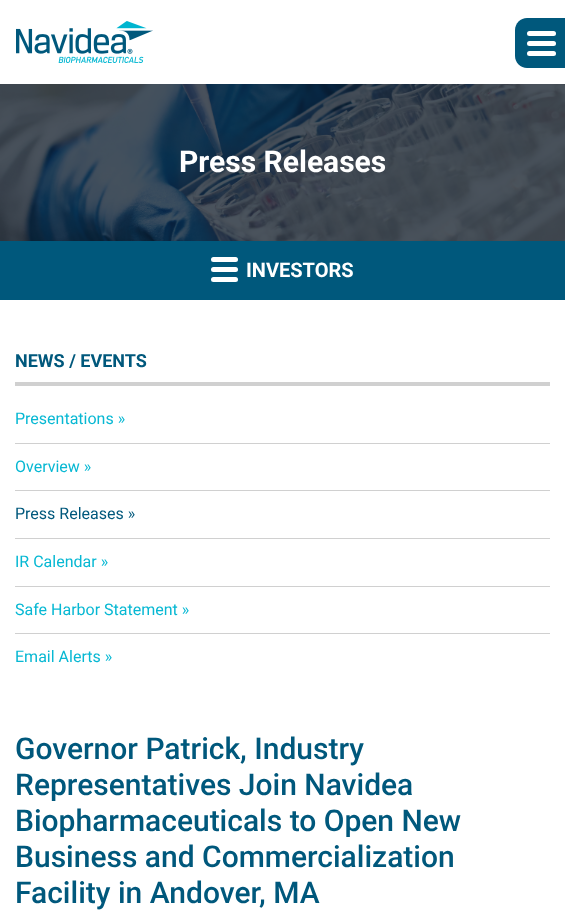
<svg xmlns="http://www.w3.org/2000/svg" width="565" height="920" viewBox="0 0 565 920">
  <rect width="100%" height="100%" fill="rgb(255,255,255)"/>
  <image x="16" y="21" width="137" height="42" href="pic1.png"/>
  <path d="M527 18H565V68H527C520.5 68 515 62.5 515 56V30C515 23.5 520.5 18 527 18Z" fill="rgb(0,88,124)"/>
  <rect x="527" y="31" width="29" height="5" rx="2.5" fill="rgb(255,255,255)"/>
  <rect x="527" y="41" width="29" height="5" rx="2.5" fill="rgb(255,255,255)"/>
  <rect x="527" y="51" width="29" height="5" rx="2.5" fill="rgb(255,255,255)"/>
  <image x="0" y="84" width="565" height="157" href="pic2.png"/>
  <text x="179" y="172" font-family="Roboto" font-size="30" font-weight="bold" fill="rgb(255,255,255)">Press Releases</text>
  <rect x="0" y="241" width="565" height="59" fill="rgb(0,88,124)"/>
  <rect x="211" y="257" width="27" height="5" rx="2.5" fill="rgb(255,255,255)"/>
  <rect x="211" y="267" width="27" height="5" rx="2.5" fill="rgb(255,255,255)"/>
  <rect x="211" y="277" width="27" height="5" rx="2.5" fill="rgb(255,255,255)"/>
  <text x="246" y="277" font-family="Roboto" font-size="20" font-weight="bold" fill="rgb(255,255,255)">INVESTORS</text>
  <rect x="15" y="382" width="535" height="4" fill="rgb(208,208,208)"/>
  <text x="15" y="367" font-family="Roboto" font-size="18" font-weight="bold" fill="rgb(0,88,124)">NEWS / EVENTS</text>
  <rect x="15" y="443" width="535" height="1" fill="rgb(208,208,208)"/>
  <text x="15" y="424" font-family="Roboto" font-size="16" fill="rgb(7,184,211)">Presentations »</text>
  <rect x="15" y="490" width="535" height="1" fill="rgb(208,208,208)"/>
  <text x="15" y="472" font-family="Roboto" font-size="16" fill="rgb(7,184,211)">Overview »</text>
  <rect x="15" y="538" width="535" height="1" fill="rgb(208,208,208)"/>
  <text x="15" y="519" font-family="Roboto" font-size="16" fill="rgb(0,88,124)">Press Releases »</text>
  <rect x="15" y="586" width="535" height="1" fill="rgb(208,208,208)"/>
  <text x="15" y="567" font-family="Roboto" font-size="16" fill="rgb(7,184,211)">IR Calendar »</text>
  <rect x="15" y="633" width="535" height="1" fill="rgb(208,208,208)"/>
  <g font-family="Roboto" font-size="16" fill="rgb(7,184,211)">
    <text x="15" y="615">Safe Harbor Statement »</text>
    <text x="15" y="662">Email Alerts »</text>
  </g>
  <g font-family="Roboto" font-size="30" font-weight="500" fill="rgb(0,88,124)">
    <text>
      <tspan x="15" y="759">Governor Patrick, Industry</tspan>
      <tspan x="15" y="795">Representatives Join Navidea</tspan>
      <tspan x="15" y="831">Biopharmaceuticals to Open New</tspan>
      <tspan x="15" y="867">Business and Commercialization</tspan>
      <tspan x="15" y="903">Facility in Andover, MA</tspan>
    </text>
  </g>
</svg>
